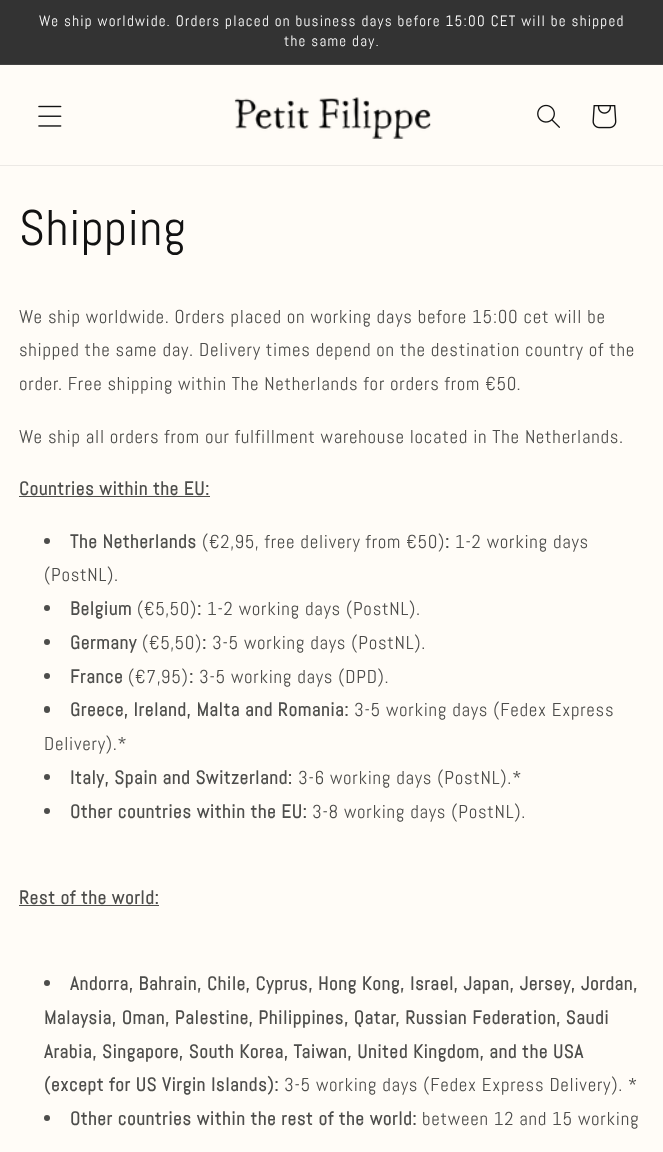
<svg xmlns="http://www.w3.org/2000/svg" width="663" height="1152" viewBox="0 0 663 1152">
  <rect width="100%" height="100%" fill="rgb(255,252,247)"/>
  <rect x="0" y="0" width="663" height="64" fill="rgb(51,51,51)"/>
  <rect x="0" y="64" width="663" height="1" fill="rgb(67,67,67)"/>
  <g font-family="Abel" font-size="15" letter-spacing="1.25" fill="rgb(255,255,255)">
    <text x="39" y="26">We ship worldwide. Orders placed on business days before 15:00 CET will be shipped</text>
    <text x="284" y="46">the same day.</text>
  </g>
  <rect x="0" y="165" width="663" height="1" fill="rgb(236,233,229)"/>
  <image x="38" y="105" width="24" height="22" href="pic1.png"/>
  <image x="234" y="97" width="197" height="42" href="pic2.png"/>
  <image x="537" y="104" width="23" height="24" href="pic3.png"/>
  <image x="592" y="105" width="25" height="24" href="pic4.png"/>
  <text x="19" y="245" font-family="Abel" font-size="50" letter-spacing="0.75" fill="rgb(18,18,18)">Shipping</text>
  <g font-family="Abel" font-size="18.75" letter-spacing="0.75" fill="rgb(77,77,75)">
    <text>
      <tspan x="19" y="323">We ship worldwide. Orders placed on working days before 15:00 cet will be</tspan>
      <tspan x="19" y="356">shipped the same day. Delivery times depend on the destination country of the</tspan>
      <tspan x="19" y="390">order. Free shipping within The Netherlands for orders from €50.</tspan>
    </text>
    <text x="19" y="443">We ship all orders from our fulfillment warehouse located in The Netherlands.</text>
  </g>
  <text x="19" y="495" font-family="Abel" font-size="18.75" font-weight="bold" letter-spacing="0.75" fill="rgb(77,77,75)">Countries within the EU:</text>
  <rect x="19" y="496" width="191" height="1" fill="rgb(77,77,75)"/>
  <circle cx="47" cy="541" r="3" fill="rgb(77,77,75)"/>
  <text x="70" y="548" font-family="Abel" font-size="18.75" font-weight="bold" letter-spacing="0.75" fill="rgb(77,77,75)">The Netherlands</text>
  <text x="202" y="548" font-family="Abel" font-size="18.75" letter-spacing="0.75" fill="rgb(77,77,75)">(€2,95, free delivery from €50)</text>
  <text x="445" y="548" font-family="Abel" font-size="18.75" font-weight="bold" letter-spacing="0.75" fill="rgb(77,77,75)">:</text>
  <g font-family="Abel" font-size="18.75" letter-spacing="0.75" fill="rgb(77,77,75)">
    <text x="455" y="548">1-2 working days</text>
    <text x="44" y="581">(PostNL).</text>
  </g>
  <circle cx="47" cy="608" r="3" fill="rgb(77,77,75)"/>
  <text x="70" y="615" font-family="Abel" font-size="18.75" font-weight="bold" letter-spacing="0.75" fill="rgb(77,77,75)">Belgium</text>
  <text x="137" y="615" font-family="Abel" font-size="18.75" letter-spacing="0.75" fill="rgb(77,77,75)">(€5,50)</text>
  <text x="197" y="615" font-family="Abel" font-size="18.75" font-weight="bold" letter-spacing="0.75" fill="rgb(77,77,75)">:</text>
  <text x="207" y="615" font-family="Abel" font-size="18.75" letter-spacing="0.75" fill="rgb(77,77,75)">1-2 working days (PostNL).</text>
  <circle cx="47" cy="642" r="3" fill="rgb(77,77,75)"/>
  <text x="70" y="649" font-family="Abel" font-size="18.75" font-weight="bold" letter-spacing="0.75" fill="rgb(77,77,75)">Germany</text>
  <text x="142" y="649" font-family="Abel" font-size="18.75" letter-spacing="0.75" fill="rgb(77,77,75)">(€5,50)</text>
  <text x="202" y="649" font-family="Abel" font-size="18.75" font-weight="bold" letter-spacing="0.75" fill="rgb(77,77,75)">:</text>
  <text x="212" y="649" font-family="Abel" font-size="18.75" letter-spacing="0.75" fill="rgb(77,77,75)">3-5 working days (PostNL).</text>
  <circle cx="47" cy="676" r="3" fill="rgb(77,77,75)"/>
  <text x="70" y="683" font-family="Abel" font-size="18.75" font-weight="bold" letter-spacing="0.75" fill="rgb(77,77,75)">France</text>
  <text x="128" y="683" font-family="Abel" font-size="18.75" letter-spacing="0.75" fill="rgb(77,77,75)">(€7,95)</text>
  <text x="189" y="683" font-family="Abel" font-size="18.75" font-weight="bold" letter-spacing="0.75" fill="rgb(77,77,75)">:</text>
  <text x="199" y="683" font-family="Abel" font-size="18.75" letter-spacing="0.75" fill="rgb(77,77,75)">3-5 working days (DPD).</text>
  <rect x="44" y="706" width="6" height="7" rx="3" fill="rgb(77,77,75)"/>
  <text x="70" y="716" font-family="Abel" font-size="18.75" font-weight="bold" letter-spacing="0.75" fill="rgb(77,77,75)">Greece, Ireland, Malta and Romania:</text>
  <g font-family="Abel" font-size="18.75" letter-spacing="0.75" fill="rgb(77,77,75)">
    <text x="354" y="716">3-5 working days (Fedex Express</text>
    <text x="44" y="750">Delivery).*</text>
  </g>
  <circle cx="47" cy="777" r="3" fill="rgb(77,77,75)"/>
  <text x="70" y="784" font-family="Abel" font-size="18.75" font-weight="bold" letter-spacing="0.75" fill="rgb(77,77,75)">Italy, Spain and Switzerland:</text>
  <text x="298" y="784" font-family="Abel" font-size="18.75" letter-spacing="0.75" fill="rgb(77,77,75)">3-6 working days (PostNL).*</text>
  <circle cx="47" cy="811" r="3" fill="rgb(77,77,75)"/>
  <text x="70" y="818" font-family="Abel" font-size="18.75" font-weight="bold" letter-spacing="0.75" fill="rgb(77,77,75)">Other countries within the EU:</text>
  <text x="312" y="818" font-family="Abel" font-size="18.75" letter-spacing="0.75" fill="rgb(77,77,75)">3-8 working days (PostNL).</text>
  <text x="19" y="904" font-family="Abel" font-size="18.75" font-weight="bold" letter-spacing="0.75" fill="rgb(77,77,75)">Rest of the world:</text>
  <rect x="19" y="905" width="140" height="1" fill="rgb(77,77,75)"/>
  <circle cx="47" cy="983" r="3" fill="rgb(77,77,75)"/>
  <g font-family="Abel" font-size="18.75" font-weight="bold" letter-spacing="0.75" fill="rgb(77,77,75)">
    <text x="70" y="990">Andorra, Bahrain, Chile, Cyprus, Hong Kong, Israel, Japan, Jersey, Jordan,</text>
    <text>
      <tspan x="44" y="1024">Malaysia, Oman, Palestine, Philippines, Qatar, Russian Federation, Saudi</tspan>
      <tspan x="44" y="1058">Arabia, Singapore, South Korea, Taiwan, United Kingdom, and the USA</tspan>
      <tspan x="44" y="1091">(except for US Virgin Islands):</tspan>
    </text>
  </g>
  <text x="284" y="1091" font-family="Abel" font-size="18.75" letter-spacing="0.75" fill="rgb(77,77,75)">3-5 working days (Fedex Express Delivery). *</text>
  <circle cx="47" cy="1118" r="3" fill="rgb(77,77,75)"/>
  <text x="70" y="1125" font-family="Abel" font-size="18.75" font-weight="bold" letter-spacing="0.75" fill="rgb(77,77,75)">Other countries within the rest of the world:</text>
  <text x="422" y="1125" font-family="Abel" font-size="18.75" letter-spacing="0.75" fill="rgb(77,77,75)">between 12 and 15 working</text>
</svg>
